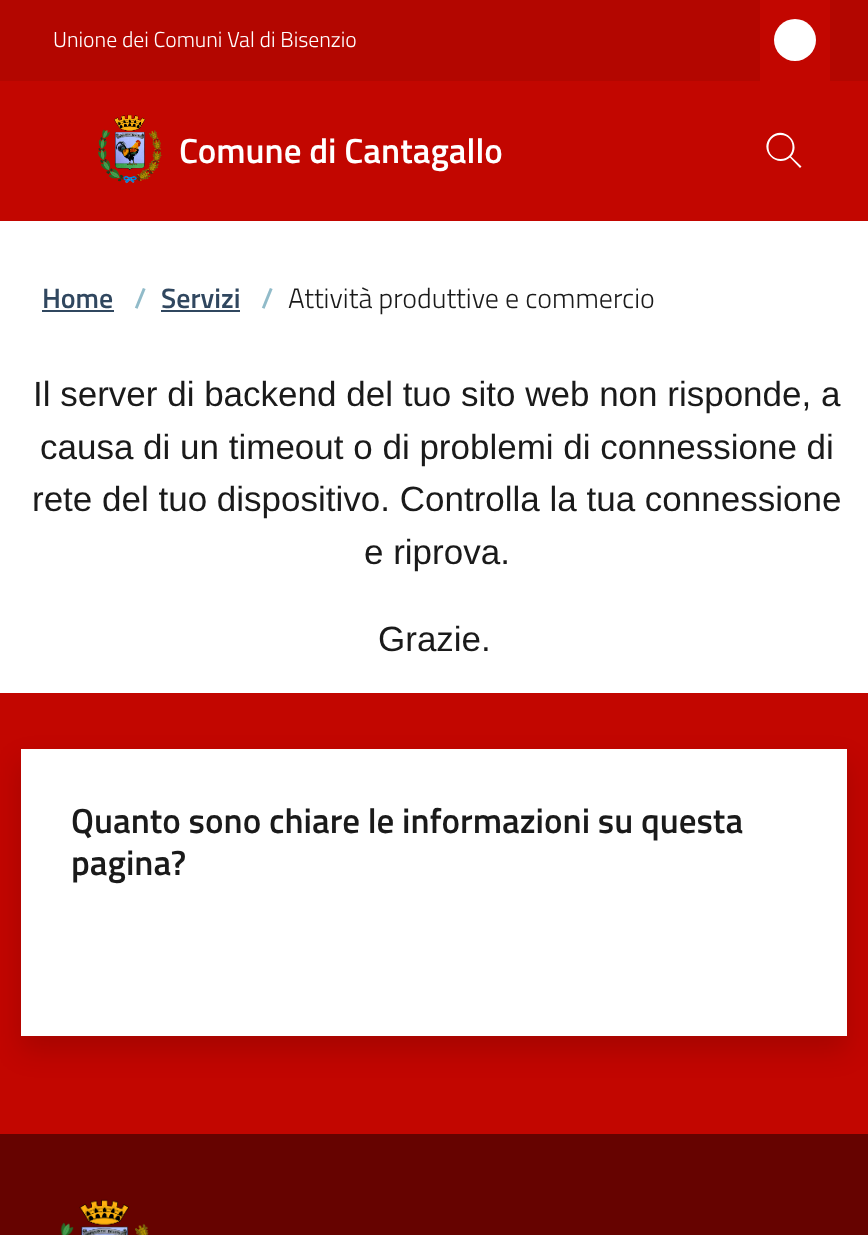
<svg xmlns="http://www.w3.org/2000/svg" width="868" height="1235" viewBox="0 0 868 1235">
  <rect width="100%" height="100%" fill="rgb(255,255,255)"/>
  <rect x="0" y="0" width="868" height="81" fill="rgb(179,6,0)"/>
  <text x="53" y="47" font-family="Titillium Web" font-size="21.75" font-weight="300" fill="rgb(255,255,255)">Unione dei Comuni Val di Bisenzio</text>
  <rect x="760" y="0" width="70" height="81" fill="rgb(194,6,0)"/>
  <circle cx="795" cy="40" r="21" fill="rgb(255,255,255)"/>
  <rect x="0" y="81" width="868" height="140" fill="rgb(194,6,0)"/>
  <image x="98" y="114" width="64" height="70" href="pic1.png"/>
  <text x="179" y="163" font-family="Titillium Web" font-size="35" font-weight="600" fill="rgb(255,255,255)">Comune di Cantagallo</text>
  <path d="M801.5 166.5L791 156.5C802.5 143 783.5 124.5 770.5 137C758 150 776.5 169 790 157.5L800 168ZM780.5 159C764.5 159 764.5 135 780.5 135C796.5 135 796.5 159 780.5 159Z" fill="rgb(255,255,255)"/>
  <text x="42" y="308" font-family="Titillium Web" font-size="28" font-weight="600" fill="rgb(48,71,95)">Home</text>
  <rect x="42" y="310" width="72" height="2" fill="rgb(48,71,95)"/>
  <text x="134" y="308" font-family="Titillium Web" font-size="28" font-weight="600" fill="rgb(145,187,201)">/</text>
  <text x="161" y="308" font-family="Titillium Web" font-size="28" font-weight="600" fill="rgb(48,71,95)">Servizi</text>
  <rect x="161" y="310" width="79" height="2" fill="rgb(48,71,95)"/>
  <text x="261" y="308" font-family="Titillium Web" font-size="28" font-weight="600" fill="rgb(145,187,201)">/</text>
  <text x="288" y="308" font-family="Titillium Web" font-size="28" font-weight="300" fill="rgb(26,26,26)">Attività produttive e commercio</text>
  <g font-family="Liberation Sans" font-size="35" fill="rgb(26,26,26)">
    <text x="33" y="406">Il server di backend del tuo sito web non risponde, a</text>
    <text x="40" y="459">causa di un timeout o di problemi di connessione di</text>
    <text x="32" y="511">rete del tuo dispositivo. Controlla la tua connessione</text>
    <text x="364" y="564">e riprova.</text>
    <text x="378" y="651">Grazie.</text>
  </g>
  <rect x="0" y="693" width="868" height="441" fill="rgb(194,6,0)"/>
  <rect x="21" y="763" width="826" height="287" fill="rgba(0,0,0,0.15)" filter="blur(14px)"/>
  <rect x="21" y="749" width="826" height="287" fill="rgb(255,255,255)"/>
  <g font-family="Titillium Web" font-size="35" font-weight="600" fill="rgb(26,26,26)">
    <text>
      <tspan x="71" y="833">Quanto sono chiare le informazioni su questa</tspan>
      <tspan x="71" y="875">pagina?</tspan>
    </text>
  </g>
  <rect x="0" y="1134" width="868" height="101" fill="rgb(102,3,0)"/>
  <image x="59" y="1199" width="90" height="36" href="pic2.png"/>
</svg>
